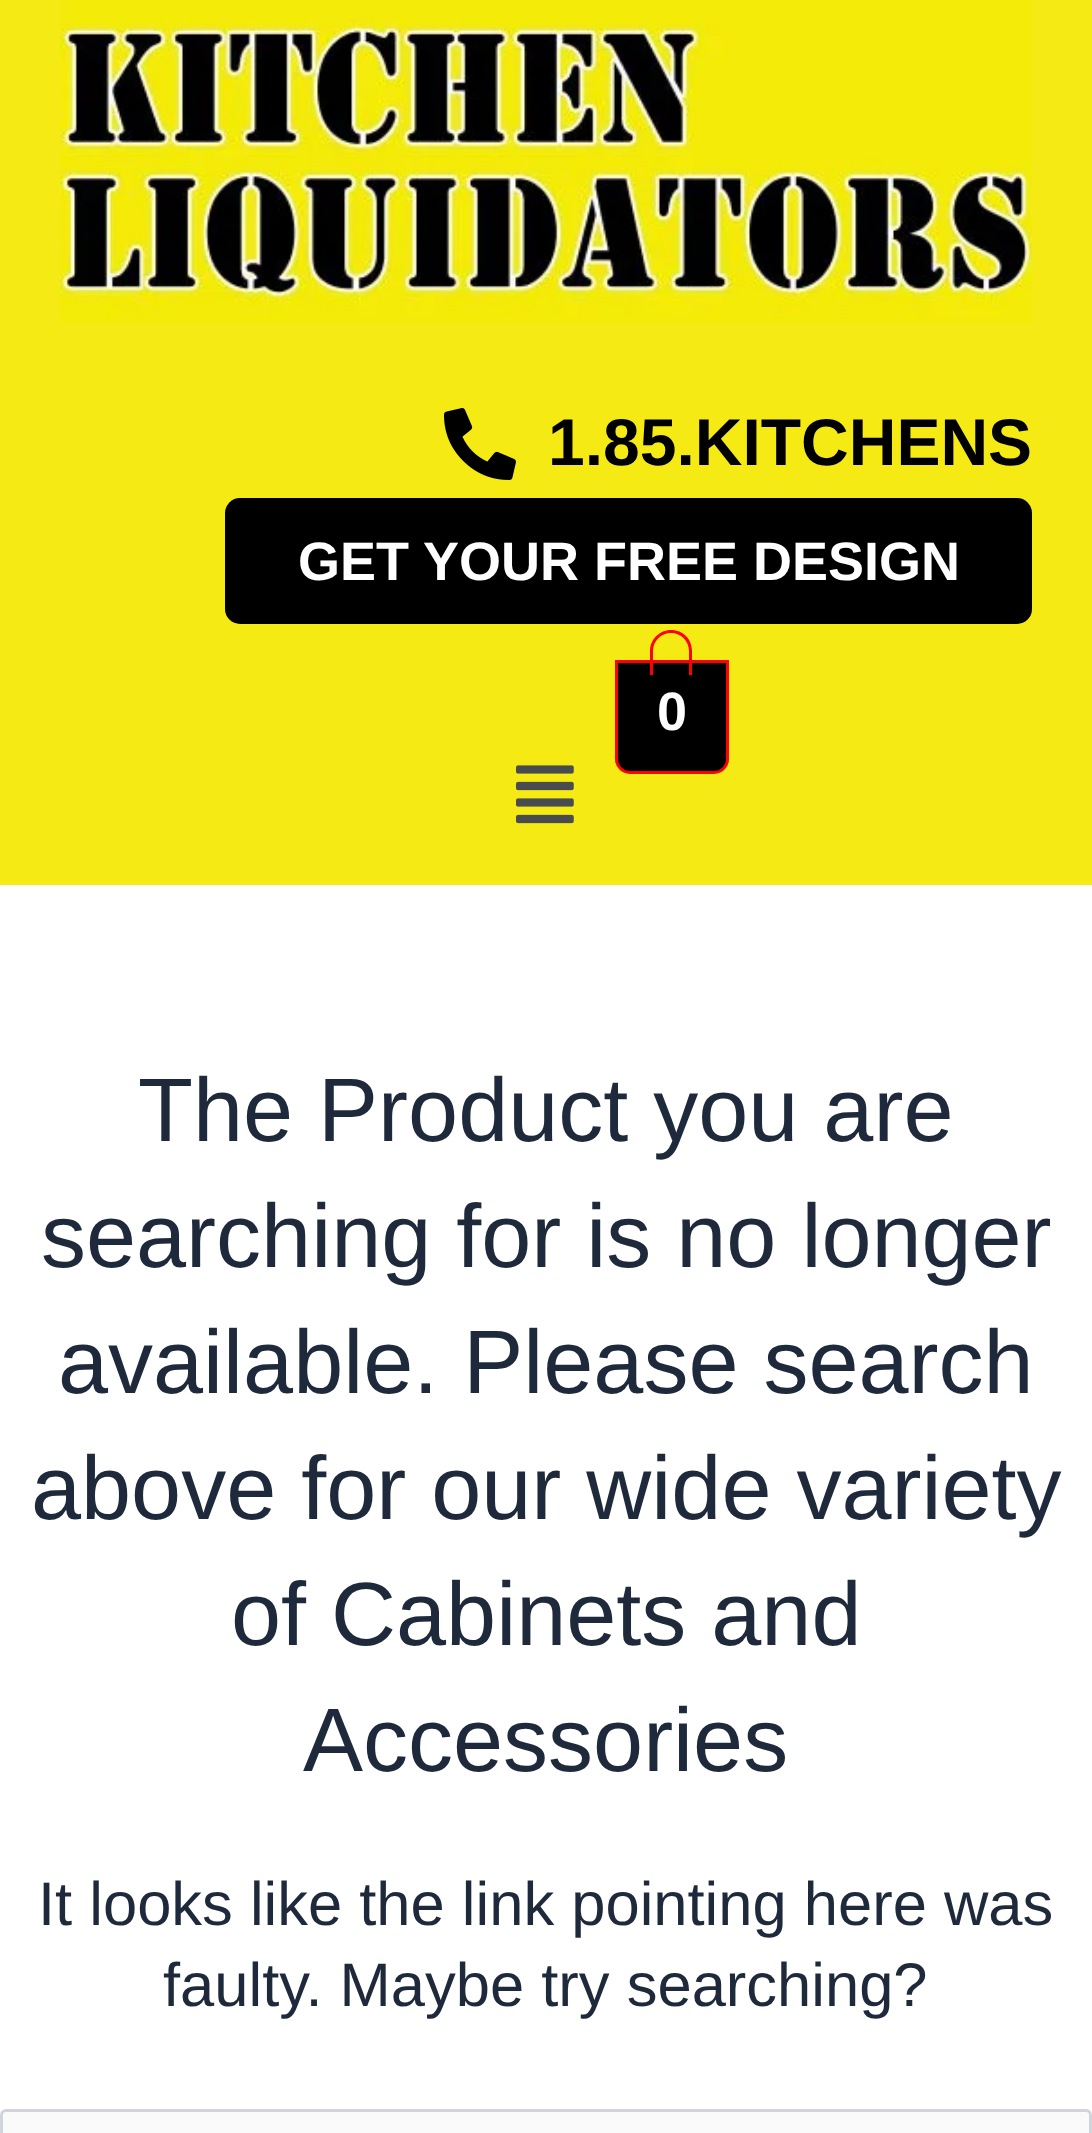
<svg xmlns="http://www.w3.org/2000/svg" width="1092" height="2133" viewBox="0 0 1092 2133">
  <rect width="100%" height="100%" fill="rgb(255,255,255)"/>
  <rect x="0" y="0" width="1092" height="885" fill="rgb(245,234,19)"/>
  <image x="60" y="0" width="972" height="324" href="pic1.png"/>
  <image x="444" y="408" width="72" height="72" href="pic2.png"/>
  <text x="548" y="465" font-family="Liberation Sans" font-size="66" font-weight="bold" fill="rgb(0,0,0)">1.85.KITCHENS</text>
  <rect x="225" y="498" width="807" height="126" rx="15" fill="rgb(0,0,0)"/>
  <text x="298" y="580" font-family="Liberation Sans" font-size="54" font-weight="bold" fill="rgb(255,255,255)">GET YOUR FREE DESIGN</text>
  <path d="M616.5 661.5H727.5V759C727.5 766.5 721.5 772.5 714 772.5H630C622.5 772.5 616.5 766.5 616.5 759Z" fill="rgb(0,0,0)" stroke="rgb(255,0,0)" stroke-width="3"/>
  <path d="M671 630C683 630 692 639 692 651V675H650V651C650 639 660 630 671 630ZM671 633C681 633 689 641 689 651V675H653V651C653 641 661 633 671 633Z" fill="rgb(255,0,0)" fill-rule="evenodd"/>
  <text x="657" y="730" font-family="Liberation Sans" font-size="54" font-weight="bold" fill="rgb(255,255,255)">0</text>
  <image x="516" y="765" width="58" height="59" href="pic3.png"/>
  <g font-family="Liberation Sans" font-size="90" fill="rgb(30,41,59)">
    <text x="138" y="1141">The Product you are</text>
    <text x="41" y="1267">searching for is no longer</text>
    <text x="58" y="1393">available. Please search</text>
    <text x="31" y="1519">above for our wide variety</text>
    <text x="231" y="1645">of Cabinets and</text>
    <text x="303" y="1771">Accessories</text>
  </g>
  <g font-family="Liberation Sans" font-size="61.5" fill="rgb(30,41,59)">
    <text x="38" y="1925">It looks like the link pointing here was</text>
    <text x="163" y="2006">faulty. Maybe try searching?</text>
  </g>
  <rect x="1.5" y="2110.5" width="1089" height="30" rx="4.5" fill="rgb(250,250,250)" stroke="rgb(209,213,219)" stroke-width="3"/>
</svg>
